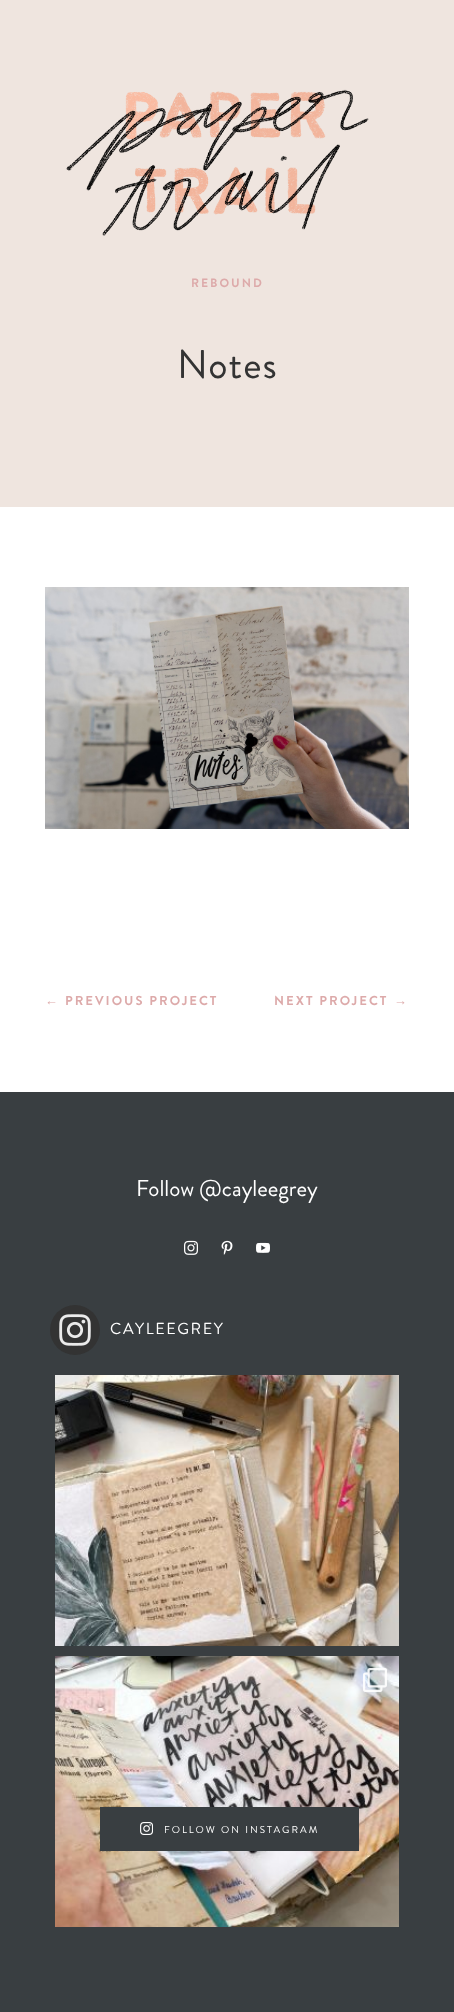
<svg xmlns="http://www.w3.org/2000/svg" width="454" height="2012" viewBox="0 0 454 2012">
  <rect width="100%" height="100%" fill="rgb(255,255,255)"/>
  <rect x="0" y="0" width="454" height="507" fill="rgb(239,229,223)"/>
  <image x="66" y="89" width="303" height="147" href="pic1.png"/>
  <text x="191" y="287" font-family="Brandon Grotesque" font-size="12" font-weight="bold" letter-spacing="2" fill="rgb(221,170,170)">REBOUND</text>
  <text x="177" y="378" font-family="Brandon Grotesque" font-size="40" letter-spacing="1" fill="rgb(51,51,51)">Notes</text>
  <image x="45" y="587" width="364" height="242" href="pic2.png"/>
  <text x="45" y="1005" font-family="Liberation Sans" font-size="13" font-weight="bold" letter-spacing="2" fill="rgb(221,170,170)">←</text>
  <g font-family="Brandon Grotesque" font-size="13" font-weight="bold" letter-spacing="2" fill="rgb(221,170,170)">
    <text x="65" y="1005">PREVIOUS PROJECT</text>
    <text x="274" y="1005">NEXT PROJECT</text>
  </g>
  <text x="394" y="1005" font-family="Liberation Sans" font-size="13" font-weight="bold" letter-spacing="2" fill="rgb(221,170,170)">→</text>
  <rect x="0" y="1092" width="454" height="920" fill="rgb(57,62,65)"/>
  <text x="136" y="1196" font-family="Brandon Grotesque" font-size="23" fill="rgb(255,255,255)">Follow @cayleegrey</text>
  <image x="184" y="1240" width="14" height="15" href="pic3.png"/>
  <image x="221" y="1240" width="12" height="15" href="pic4.png"/>
  <image x="256" y="1242" width="14" height="11" href="pic5.png"/>
  <circle cx="75" cy="1330" r="25" fill="rgb(51,51,51)"/>
  <image x="59" y="1314" width="32" height="32" href="pic6.png"/>
  <text x="110" y="1334" font-family="Brandon Grotesque" font-size="16" letter-spacing="1.6" fill="rgb(255,255,255)">CAYLEEGREY</text>
  <image x="55" y="1375" width="344" height="271" href="pic7.png"/>
  <image x="55" y="1656" width="344" height="271" href="pic8.png"/>
  <image x="363" y="1668" width="24" height="24" href="pic9.png"/>
  <rect x="100" y="1807" width="259" height="44" fill="rgb(57,62,65)"/>
  <image x="140" y="1822" width="13" height="13" href="pic10.png"/>
  <text x="164" y="1833" font-family="Brandon Grotesque" font-size="10" letter-spacing="2" fill="rgb(255,255,255)">FOLLOW ON INSTAGRAM</text>
</svg>
